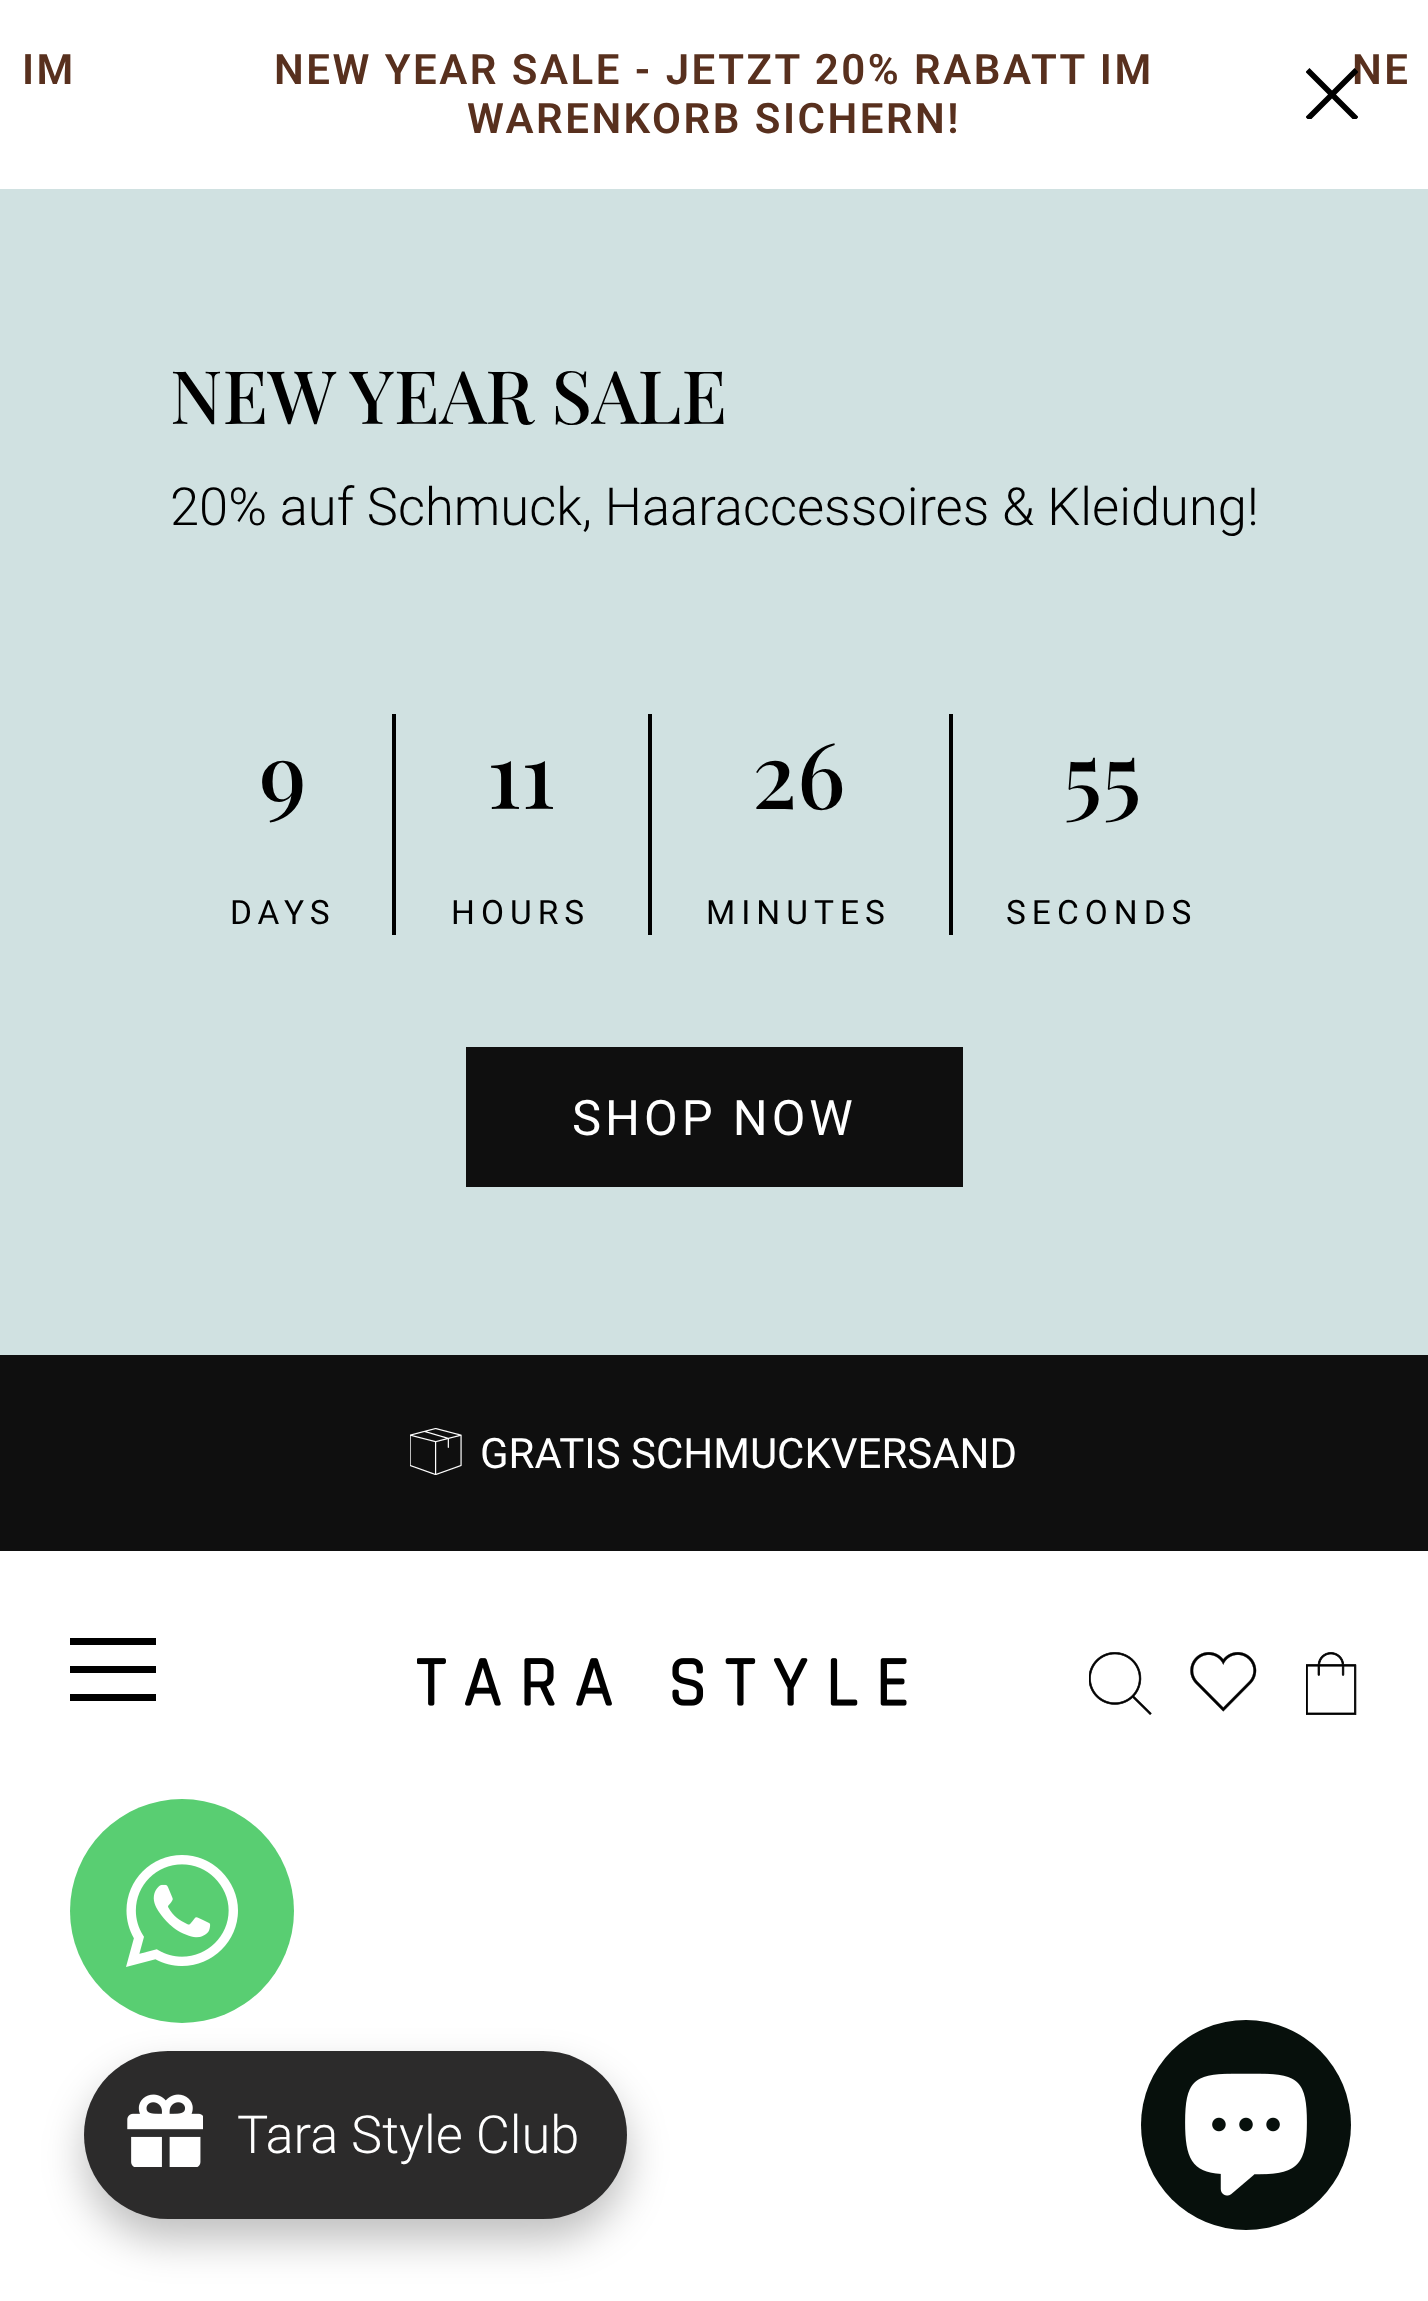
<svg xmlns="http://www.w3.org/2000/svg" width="1428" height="2301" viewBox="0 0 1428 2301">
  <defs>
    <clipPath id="clip1"><rect x="1306" y="67" width="52" height="52"/></clipPath>
  </defs>
  <rect width="100%" height="100%" fill="rgb(255,255,255)"/>
  <g font-family="Roboto" font-size="42" font-weight="600" letter-spacing="2.5" fill="rgb(88,48,30)">
    <text x="22" y="84">IM</text>
    <text x="274" y="84">NEW YEAR SALE - JETZT 20% RABATT IM</text>
    <text x="467" y="133">WARENKORB SICHERN!</text>
    <text x="1352" y="84">NE</text>
  </g>
  <g clip-path="url(#clip1)">
    <path d="M1307.5 70L1356.5 119M1356.5 70L1307.5 119" fill="none" stroke="rgb(0,0,0)" stroke-width="5.6" stroke-linejoin="round"/>
  </g>
  <rect x="0" y="189" width="1428" height="1166" fill="rgb(208,225,225)"/>
  <text x="170" y="424" font-family="Playfair Display" font-size="73.75" font-weight="500" fill="rgb(0,0,0)">NEW YEAR SALE</text>
  <text x="170" y="525" font-family="Roboto" font-size="52.5" font-weight="300" fill="rgb(0,0,0)">20% auf Schmuck, Haaraccessoires &amp; Kleidung!</text>
  <rect x="392" y="714" width="4" height="221" fill="rgb(0,0,0)"/>
  <text x="259" y="809" font-family="Playfair Display" font-size="91" font-weight="500" fill="rgb(0,0,0)">9</text>
  <text x="230" y="924" font-family="Roboto" font-size="33.5" letter-spacing="6" fill="rgb(0,0,0)">DAYS</text>
  <rect x="648" y="714" width="4" height="221" fill="rgb(0,0,0)"/>
  <text x="487" y="809" font-family="Playfair Display" font-size="91" font-weight="500" fill="rgb(0,0,0)">11</text>
  <text x="451" y="924" font-family="Roboto" font-size="33.5" letter-spacing="6" fill="rgb(0,0,0)">HOURS</text>
  <rect x="949" y="714" width="4" height="221" fill="rgb(0,0,0)"/>
  <text x="752" y="809" font-family="Playfair Display" font-size="91" font-weight="500" fill="rgb(0,0,0)">26</text>
  <text x="706" y="924" font-family="Roboto" font-size="33.5" letter-spacing="6" fill="rgb(0,0,0)">MINUTES</text>
  <text x="1063" y="809" font-family="Playfair Display" font-size="91" font-weight="500" fill="rgb(0,0,0)">55</text>
  <text x="1006" y="924" font-family="Roboto" font-size="33.5" letter-spacing="6" fill="rgb(0,0,0)">SECONDS</text>
  <rect x="466" y="1047" width="497" height="140" fill="rgb(15,15,15)"/>
  <text x="572" y="1135" font-family="Roboto" font-size="49" letter-spacing="4" fill="rgb(255,255,255)">SHOP NOW</text>
  <rect x="0" y="1355" width="1428" height="196" fill="rgb(15,15,15)"/>
  <image x="410" y="1428" width="52" height="47" href="pic1.png"/>
  <text x="480" y="1468" font-family="Roboto" font-size="42" fill="rgb(255,255,255)">GRATIS SCHMUCKVERSAND</text>
  <rect x="70" y="1638" width="86" height="7" fill="rgb(0,0,0)"/>
  <rect x="70" y="1666" width="86" height="7" fill="rgb(0,0,0)"/>
  <rect x="70" y="1694" width="86" height="7" fill="rgb(0,0,0)"/>
  <image x="417" y="1658" width="490" height="48" href="pic2.png"/>
  <image x="1089" y="1652" width="63" height="63" href="pic3.png"/>
  <image x="1190" y="1652" width="67" height="60" href="pic4.png"/>
  <image x="1306" y="1652" width="51" height="63" href="pic5.png"/>
  <circle cx="182" cy="1911" r="112" fill="rgb(89,206,114)"/>
  <image x="126" y="1855" width="112" height="112" href="pic6.png"/>
  <rect x="84" y="2072" width="543" height="168" rx="84" fill="rgba(0,0,0,0.25)" filter="blur(21px)"/>
  <rect x="84" y="2051" width="543" height="168" rx="84" fill="rgb(44,43,43)"/>
  <image x="127" y="2094" width="76" height="73" href="pic7.png"/>
  <text x="237" y="2153" font-family="Roboto" font-size="52.5" font-weight="300" fill="rgb(255,255,255)">Tara Style Club</text>
  <circle cx="1246" cy="2125" r="105" fill="rgb(7,16,12)"/>
  <image x="1185" y="2073" width="122" height="123" href="pic8.png"/>
</svg>
